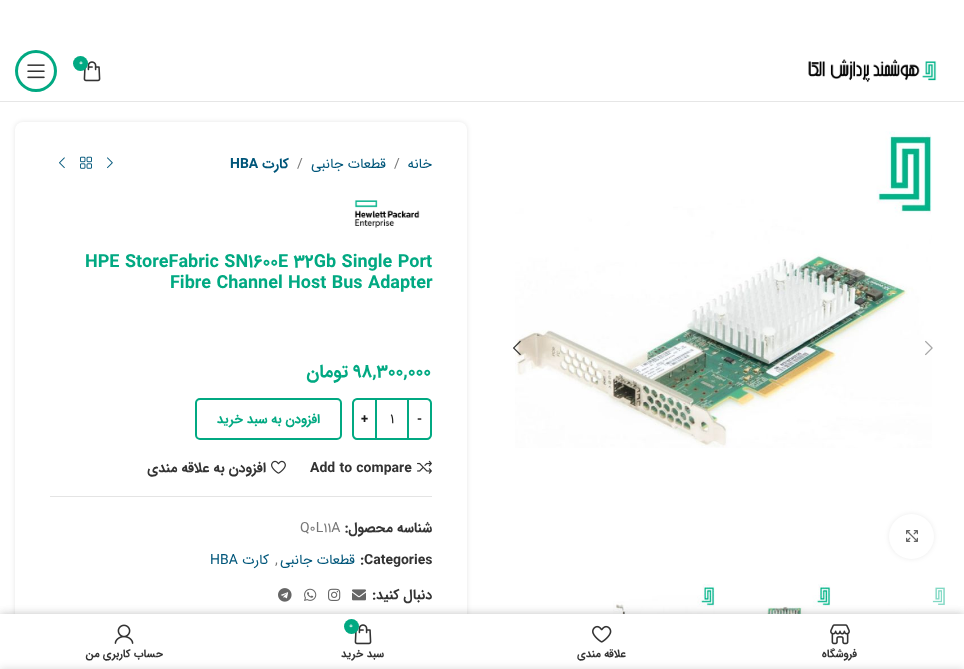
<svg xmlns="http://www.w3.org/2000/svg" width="964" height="669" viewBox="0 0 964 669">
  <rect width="100%" height="100%" fill="rgb(255,255,255)"/>
  <rect x="0" y="101" width="964" height="1" fill="rgb(230,230,230)"/>
  <image x="808" y="59" width="129" height="24" href="pic1.png"/>
  <image x="83" y="61" width="18" height="21" href="pic2.png"/>
  <circle cx="80.5" cy="63.5" r="7.5" fill="rgb(1,169,130)"/>
  <text x="79" y="65" font-family="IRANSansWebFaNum" font-size="9" fill="rgb(255,255,255)">0</text>
  <circle cx="36" cy="71" r="21" fill="rgb(1,169,130)"/>
  <circle cx="36" cy="71" r="18" fill="rgb(255,255,255)"/>
  <image x="27" y="64" width="18" height="15" href="pic3.png"/>
  <image x="515" y="131" width="417" height="317" href="pic4.png"/>
  <image x="925" y="340" width="8" height="16" href="pic5.png"/>
  <image x="513" y="340" width="8" height="16" href="pic6.png"/>
  <rect x="889" y="514" width="45" height="45" rx="22.5" fill="rgba(0,0,0,0.08)" filter="blur(2.5px)"/>
  <circle cx="911.5" cy="536.5" r="22.5" fill="rgb(255,255,255)"/>
  <image x="906" y="530" width="12" height="12" href="pic7.png"/>
  <image x="848" y="587" width="97" height="27" href="pic8.png"/>
  <image x="734" y="584" width="97" height="30" href="pic9.png"/>
  <image x="613" y="584" width="102" height="30" href="pic10.png"/>
  <rect x="15" y="122" width="452" height="503" rx="8" fill="rgba(0,0,0,0.1)" filter="blur(2.5px)"/>
  <rect x="15" y="122" width="452" height="503" rx="8" fill="rgb(255,255,255)"/>
  <text x="432" y="168" font-family="IRANSansWebFaNum" font-size="14" direction="rtl" fill="rgb(0,86,122)">خانه</text>
  <text x="394" y="168" font-family="IRANSansWebFaNum" font-size="14" fill="rgb(119,119,119)">/</text>
  <text x="386" y="168" font-family="IRANSansWebFaNum" font-size="14" direction="rtl" fill="rgb(0,86,122)">قطعات جانبی</text>
  <text x="297" y="168" font-family="IRANSansWebFaNum" font-size="14" fill="rgb(119,119,119)">/</text>
  <text x="289" y="168" font-family="IRANSansWebFaNum" font-size="14" font-weight="bold" direction="rtl" fill="rgb(0,86,122)">کارت</text>
  <text x="230" y="168" font-family="IRANSansWebFaNum" font-size="14" font-weight="bold" fill="rgb(0,86,122)">HBA</text>
  <image x="107" y="157" width="6" height="12" href="pic11.png"/>
  <image x="80" y="156" width="12" height="13" href="pic12.png"/>
  <image x="59" y="157" width="6" height="12" href="pic13.png"/>
  <image x="354" y="200" width="66" height="28" href="pic14.png"/>
  <g font-family="IRANSansWebFaNum" font-size="18" font-weight="bold" fill="rgb(1,169,130)">
    <text x="85" y="267">HPE StoreFabric SN1600E 32Gb Single Port</text>
    <text x="170" y="288">Fibre Channel Host Bus Adapter</text>
    <text x="353" y="377">98,300,000</text>
  </g>
  <text x="348" y="377" font-family="IRANSansWebFaNum" font-size="18" font-weight="bold" direction="rtl" fill="rgb(1,169,130)">تومان</text>
  <path d="M408 399H427C429 399 431 401 431 403V435C431 437 429 439 427 439H408Z" fill="none" stroke="rgb(1,169,130)" stroke-width="2"/>
  <text x="417" y="423" font-family="IRANSansWebFaNum" font-size="13" font-weight="bold" fill="rgb(28,28,28)">-</text>
  <rect x="377" y="398" width="30" height="2" fill="rgb(1,169,130)"/>
  <rect x="377" y="438" width="30" height="2" fill="rgb(1,169,130)"/>
  <text x="390" y="423" font-family="IRANSansWebFaNum" font-size="14" fill="rgb(28,28,28)">1</text>
  <path d="M357 399H376V439H357C355 439 353 437 353 435V403C353 401 355 399 357 399Z" fill="none" stroke="rgb(1,169,130)" stroke-width="2"/>
  <text x="361" y="423" font-family="IRANSansWebFaNum" font-size="13" font-weight="bold" fill="rgb(28,28,28)">+</text>
  <rect x="196" y="399" width="145" height="40" rx="4" fill="none" stroke="rgb(1,169,130)" stroke-width="2"/>
  <text x="320" y="423" font-family="IRANSansWebFaNum" font-size="13" font-weight="bold" direction="rtl" fill="rgb(1,169,130)">افزودن به سبد خرید</text>
  <image x="417" y="460" width="15" height="14" href="pic15.png"/>
  <text x="310" y="472" font-family="IRANSansWebFaNum" font-size="14" font-weight="bold" fill="rgb(51,51,51)">Add to compare</text>
  <image x="271" y="460" width="15" height="14" href="pic16.png"/>
  <text x="266" y="472" font-family="IRANSansWebFaNum" font-size="14" font-weight="bold" direction="rtl" fill="rgb(51,51,51)">افزودن به علاقه مندی</text>
  <rect x="50" y="496" width="382" height="1" fill="rgb(228,228,228)"/>
  <text x="432" y="532" font-family="IRANSansWebFaNum" font-size="14" font-weight="bold" direction="rtl" fill="rgb(51,51,51)">شناسه محصول:</text>
  <text x="300" y="532" font-family="IRANSansWebFaNum" font-size="14" fill="rgb(119,119,119)">Q0L11A</text>
  <text x="360" y="564" font-family="IRANSansWebFaNum" font-size="14" font-weight="bold" fill="rgb(51,51,51)">:Categories</text>
  <text x="355" y="564" font-family="IRANSansWebFaNum" font-size="14" direction="rtl" fill="rgb(0,86,122)">قطعات جانبی</text>
  <text x="275" y="564" font-family="IRANSansWebFaNum" font-size="14" fill="rgb(119,119,119)">,</text>
  <text x="269" y="564" font-family="IRANSansWebFaNum" font-size="14" direction="rtl" fill="rgb(0,86,122)">کارت</text>
  <text x="210" y="564" font-family="IRANSansWebFaNum" font-size="14" fill="rgb(0,86,122)">HBA</text>
  <text x="432" y="599" font-family="IRANSansWebFaNum" font-size="14" font-weight="bold" direction="rtl" fill="rgb(51,51,51)">دنبال کنید:</text>
  <image x="352" y="589" width="14" height="12" href="pic17.png"/>
  <image x="328" y="588" width="13" height="13" href="pic18.png"/>
  <image x="304" y="588" width="13" height="13" href="pic19.png"/>
  <image x="278" y="588" width="14" height="14" href="pic20.png"/>
  <rect x="0" y="614" width="964" height="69" fill="rgba(0,0,0,0.12)" filter="blur(4.5px)"/>
  <rect x="0" y="614" width="964" height="55" fill="rgba(0,0,0,0.12)" filter="blur(4.5px)"/>
  <rect x="0" y="614" width="964" height="55" fill="rgb(255,255,255)"/>
  <image x="830" y="624" width="20" height="21" href="pic21.png"/>
  <text x="857" y="657" font-family="IRANSansWebFaNum" font-size="11" font-weight="bold" direction="rtl" fill="rgb(51,51,51)">فروشگاه</text>
  <image x="592" y="625" width="20" height="18" href="pic22.png"/>
  <text x="626" y="657" font-family="IRANSansWebFaNum" font-size="11" font-weight="bold" direction="rtl" fill="rgb(51,51,51)">علاقه مندی</text>
  <image x="354" y="624" width="18" height="21" href="pic2.png"/>
  <circle cx="351.5" cy="626.5" r="7.5" fill="rgb(1,169,130)"/>
  <text x="349" y="628" font-family="IRANSansWebFaNum" font-size="9" fill="rgb(255,255,255)">0</text>
  <text x="384" y="657" font-family="IRANSansWebFaNum" font-size="11" font-weight="bold" direction="rtl" fill="rgb(51,51,51)">سبد خرید</text>
  <image x="114" y="624" width="20" height="20" href="pic23.png"/>
  <text x="163" y="657" font-family="IRANSansWebFaNum" font-size="11" font-weight="bold" direction="rtl" fill="rgb(51,51,51)">حساب کاربری من</text>
  <rect x="0" y="669" width="964" height="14" fill="rgba(0,0,0,0.14)" filter="blur(4.5px)"/>
</svg>
